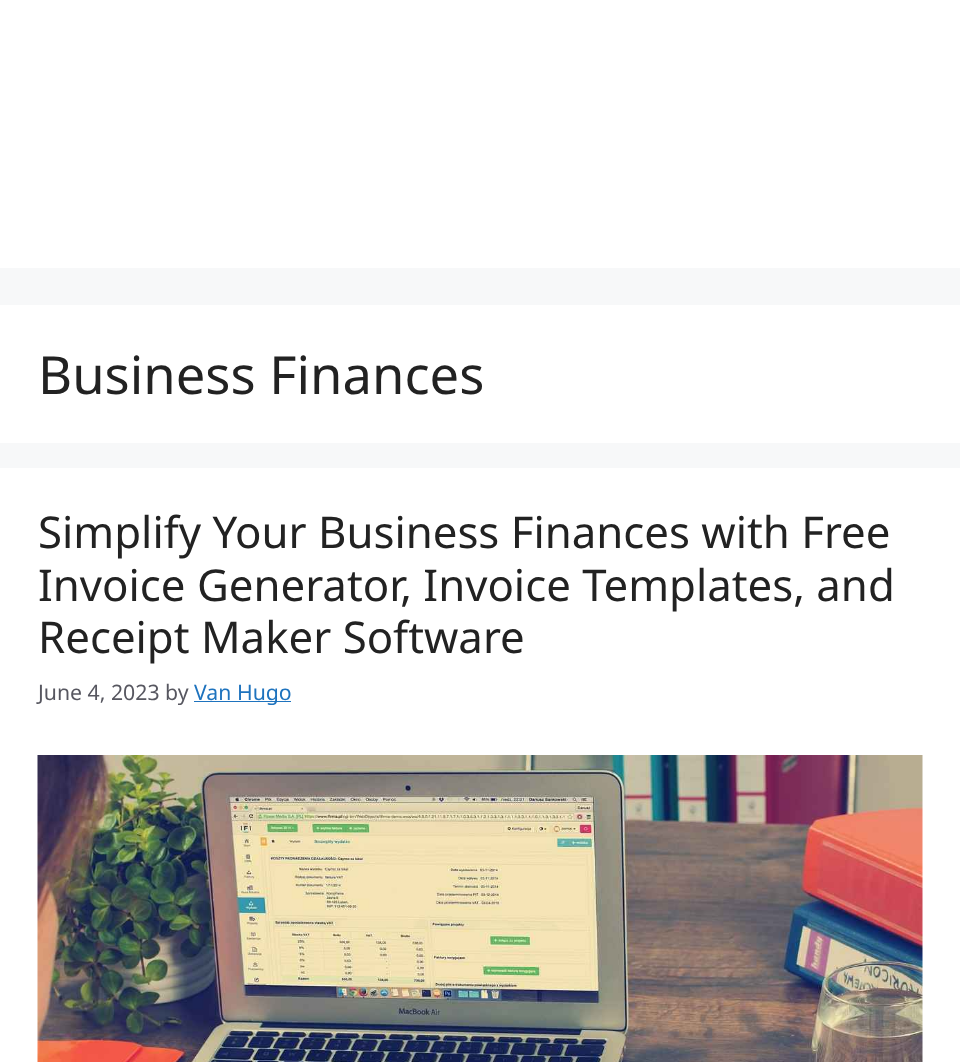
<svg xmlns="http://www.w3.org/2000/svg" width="960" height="1062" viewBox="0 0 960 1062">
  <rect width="100%" height="100%" fill="rgb(247,248,249)"/>
  <rect x="0" y="0" width="960" height="268" fill="rgb(255,255,255)"/>
  <rect x="0" y="305" width="960" height="138" fill="rgb(255,255,255)"/>
  <text x="38" y="394" font-family="Noto Sans" font-size="52.5" fill="rgb(34,34,34)">Business Finances</text>
  <rect x="0" y="468" width="960" height="594" fill="rgb(255,255,255)"/>
  <g font-family="Noto Sans" font-size="43.75" fill="rgb(34,34,34)">
    <text>
      <tspan x="38" y="548">Simplify Your Business Finances with Free</tspan>
      <tspan x="38" y="601">Invoice Generator, Invoice Templates, and</tspan>
      <tspan x="38" y="653">Receipt Maker Software</tspan>
    </text>
  </g>
  <text x="38" y="700" font-family="Noto Sans" font-size="21.25" fill="rgb(87,87,96)">June 4, 2023 by</text>
  <rect x="194" y="701" width="97" height="1" fill="rgb(30,115,190)"/>
  <text x="194" y="700" font-family="Noto Sans" font-size="21.25" fill="rgb(30,115,190)">Van Hugo</text>
  <image x="37" y="755" width="886" height="307" href="pic1.png"/>
</svg>
